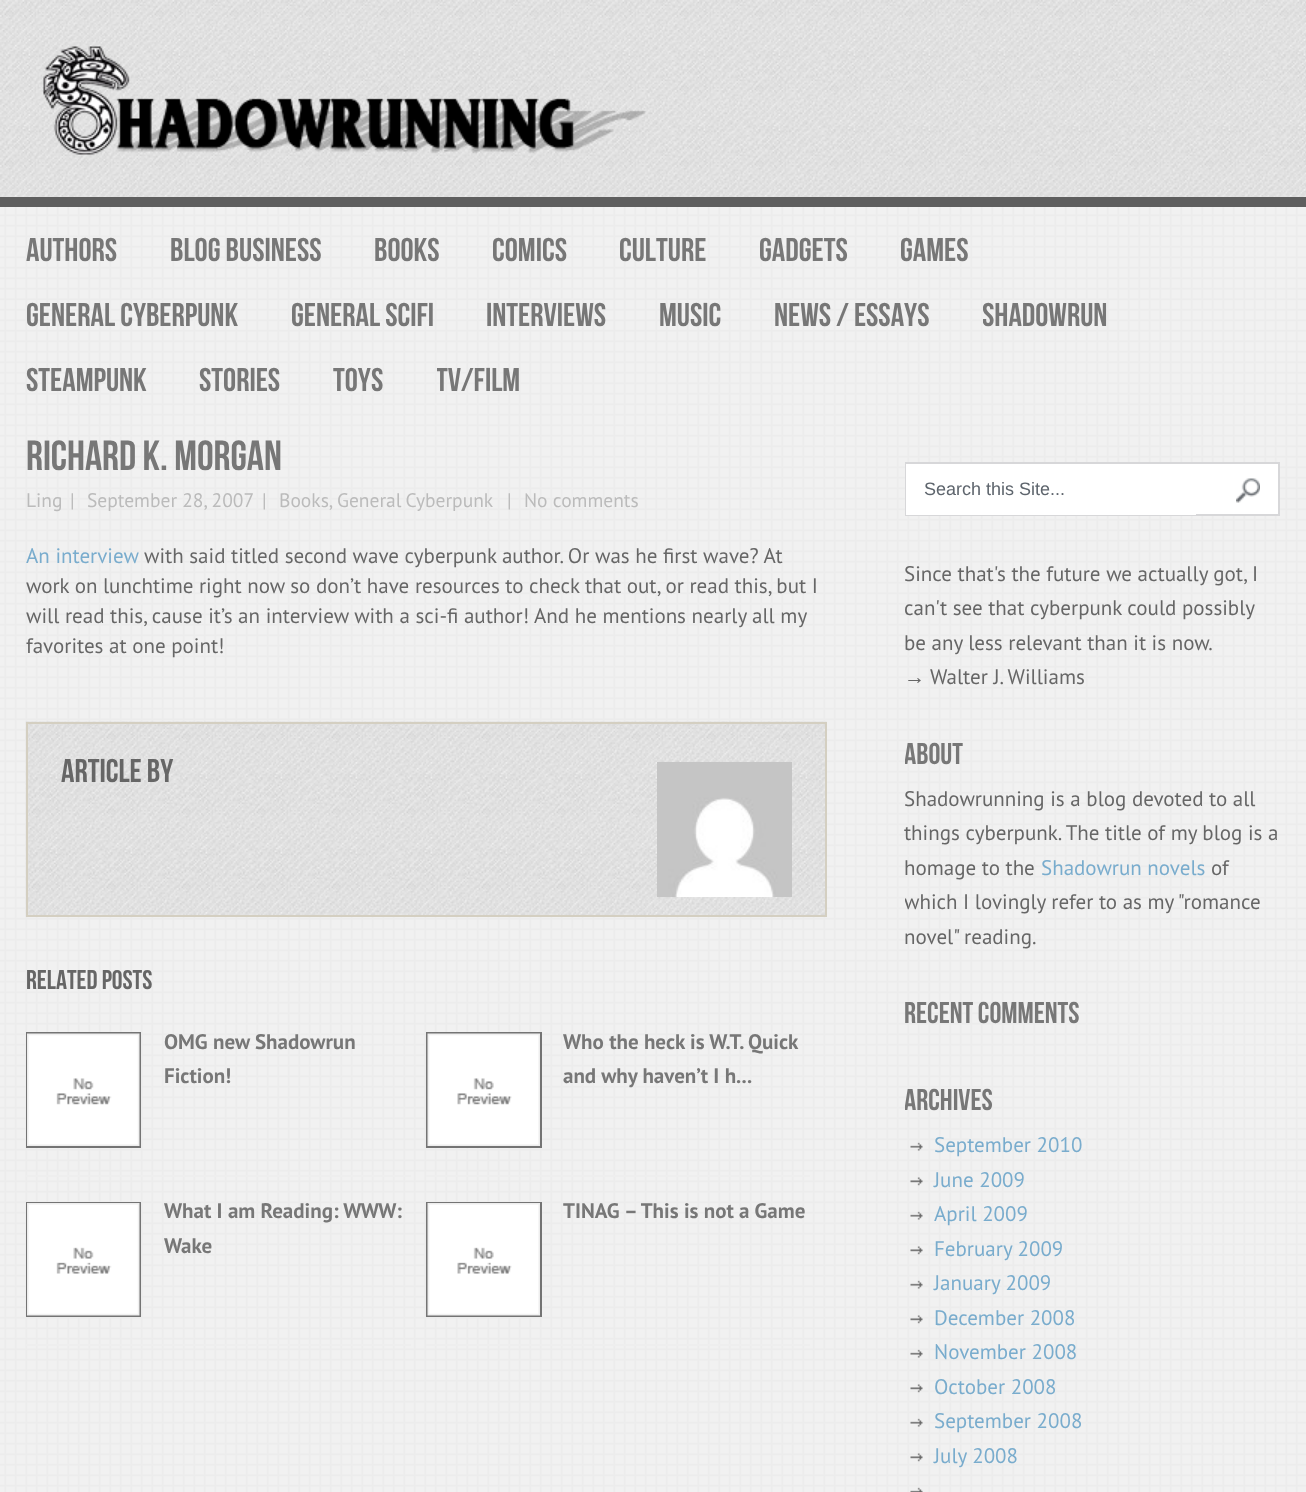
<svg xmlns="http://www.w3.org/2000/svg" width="1306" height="1492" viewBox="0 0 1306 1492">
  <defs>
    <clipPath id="clip1"><rect x="983" y="272" width="177" height="66"/></clipPath>
    <clipPath id="clip2"><rect x="437" y="338" width="136" height="64"/></clipPath>
    <clipPath id="clip3"><rect x="905" y="735" width="376" height="219"/></clipPath>
    <clipPath id="clip4"><rect x="905" y="1082" width="376" height="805"/></clipPath>
  </defs>
  <rect width="100%" height="100%" fill="rgb(255,255,255)"/>
  <image x="0" y="207" width="1306" height="1285" href="pic1.png"/>
  <image x="0" y="0" width="1306" height="197" href="pic2.png"/>
  <rect x="0" y="197" width="1306" height="10" fill="rgb(94,94,94)"/>
  <image x="43" y="46" width="603" height="109" href="pic3.png"/>
  <g font-family="Bebas Neue" font-size="33" fill="rgb(119,119,119)">
    <text x="26" y="261">AUTHORS</text>
    <text x="170" y="261">BLOG BUSINESS</text>
    <text x="374" y="261">BOOKS</text>
    <text x="492" y="261">COMICS</text>
    <text x="619" y="261">CULTURE</text>
    <text x="759" y="261">GADGETS</text>
    <text x="900" y="261">GAMES</text>
    <text x="26" y="326">GENERAL CYBERPUNK</text>
    <text x="291" y="326">GENERAL SCIFI</text>
    <text x="486" y="326">INTERVIEWS</text>
    <text x="659" y="326">MUSIC</text>
    <text x="774" y="326">NEWS / ESSAYS</text>
  </g>
  <g clip-path="url(#clip1)">
    <text x="982" y="326" font-family="Bebas Neue" font-size="33" fill="rgb(119,119,119)">SHADOWRUN</text>
  </g>
  <g font-family="Bebas Neue" font-size="33" fill="rgb(119,119,119)">
    <text x="26" y="391">STEAMPUNK</text>
    <text x="199" y="391">STORIES</text>
    <text x="333" y="391">TOYS</text>
  </g>
  <g clip-path="url(#clip2)">
    <text x="436" y="391" font-family="Bebas Neue" font-size="33" fill="rgb(119,119,119)">TV/FILM</text>
  </g>
  <text x="26" y="470" font-family="Bebas Neue" font-size="42" fill="rgb(119,119,119)">Richard K. Morgan</text>
  <g font-family="PT Sans" font-size="19.5" fill="rgb(187,187,187)">
    <text x="26" y="507">Ling</text>
    <text x="70" y="507">|</text>
    <text x="87" y="507">September 28, 2007</text>
    <text x="262" y="507">|</text>
    <text x="279" y="507">Books,</text>
    <text x="337" y="507" word-spacing="-1">General Cyberpunk</text>
    <text x="507" y="507">|</text>
    <text x="524" y="507">No comments</text>
  </g>
  <text x="26" y="563" font-family="PT Sans" font-size="21" fill="rgb(121,172,205)">An interview</text>
  <g font-family="PT Sans" font-size="21" fill="rgb(102,102,102)">
    <text x="144" y="563">with said titled second wave cyberpunk author. Or was he first wave? At</text>
    <text>
      <tspan x="26" y="593">work on lunchtime right now so don’t have resources to check that out, or read this, but I</tspan>
      <tspan x="26" y="623">will read this, cause it’s an interview with a sci-fi author! And he mentions nearly all my</tspan>
      <tspan x="26" y="653">favorites at one point!</tspan>
    </text>
  </g>
  <image x="25" y="721" width="802" height="196" href="pic4.png"/>
  <rect x="27" y="723" width="799" height="193" fill="none" stroke="rgb(212,207,193)" stroke-width="2"/>
  <text x="61" y="782" font-family="Bebas Neue" font-size="33" fill="rgb(102,102,102)">Article by</text>
  <image x="657" y="762" width="135" height="135" href="pic5.png"/>
  <text x="26" y="989" font-family="Bebas Neue" font-size="27" fill="rgb(102,102,102)">Related Posts</text>
  <rect x="26" y="1175" width="385" height="2" fill="rgb(238,238,238)"/>
  <rect x="27" y="1033" width="113" height="114" fill="none" stroke="rgb(116,116,116)" stroke-width="2"/>
  <image x="27" y="1033" width="113" height="113" href="pic6.png"/>
  <g font-family="PT Sans" font-size="21" font-weight="bold" fill="rgb(119,119,119)">
    <text>
      <tspan x="164" y="1049">OMG new Shadowrun</tspan>
      <tspan x="164" y="1083">Fiction!</tspan>
    </text>
  </g>
  <rect x="426" y="1175" width="384" height="2" fill="rgb(238,238,238)"/>
  <rect x="427" y="1033" width="114" height="114" fill="none" stroke="rgb(116,116,116)" stroke-width="2"/>
  <image x="427" y="1033" width="113" height="113" href="pic7.png"/>
  <g font-family="PT Sans" font-size="21" font-weight="bold" fill="rgb(119,119,119)">
    <text>
      <tspan x="563" y="1049">Who the heck is W.T. Quick</tspan>
      <tspan x="563" y="1083">and why haven’t I h...</tspan>
    </text>
  </g>
  <rect x="26" y="1344" width="385" height="2" fill="rgb(238,238,238)"/>
  <rect x="27" y="1203" width="113" height="113" fill="none" stroke="rgb(116,116,116)" stroke-width="2"/>
  <image x="27" y="1203" width="113" height="113" href="pic8.png"/>
  <g font-family="PT Sans" font-size="21" font-weight="bold" fill="rgb(119,119,119)">
    <text>
      <tspan x="164" y="1218">What I am Reading: WWW:</tspan>
      <tspan x="164" y="1253">Wake</tspan>
    </text>
  </g>
  <rect x="426" y="1344" width="384" height="2" fill="rgb(238,238,238)"/>
  <rect x="427" y="1203" width="114" height="113" fill="none" stroke="rgb(116,116,116)" stroke-width="2"/>
  <image x="427" y="1203" width="113" height="113" href="pic9.png"/>
  <text x="563" y="1218" font-family="PT Sans" font-size="21" font-weight="bold" fill="rgb(119,119,119)">TINAG – This is not a Game</text>
  <rect x="1196" y="464" width="82" height="50" fill="rgb(255,255,255)"/>
  <rect x="906" y="463" width="373" height="52" fill="none" stroke="rgb(215,215,217)" stroke-width="2"/>
  <rect x="906" y="464" width="290" height="51" fill="rgb(255,255,255)"/>
  <text x="924" y="495" font-family="Liberation Sans" font-size="18" fill="rgb(94,101,109)">Search this Site...</text>
  <image x="1236" y="478" width="24" height="25" href="pic10.png"/>
  <g font-family="PT Sans" font-size="21" fill="rgb(102,102,102)">
    <text>
      <tspan x="904" y="581">Since that's the future we actually got, I</tspan>
      <tspan x="904" y="615">can't see that cyberpunk could possibly</tspan>
      <tspan x="904" y="650">be any less relevant than it is now.</tspan>
    </text>
  </g>
  <text x="904" y="684" font-family="Liberation Sans" font-size="21" fill="rgb(102,102,102)">→</text>
  <text x="930" y="684" font-family="PT Sans" font-size="21" fill="rgb(102,102,102)">Walter J. Williams</text>
  <g clip-path="url(#clip3)">
    <text x="904" y="764" font-family="Bebas Neue" font-size="30" fill="rgb(119,119,119)">About</text>
  </g>
  <g font-family="PT Sans" font-size="21" fill="rgb(102,102,102)">
    <text>
      <tspan x="904" y="806">Shadowrunning is a blog devoted to all</tspan>
      <tspan x="904" y="840">things cyberpunk. The title of my blog is a</tspan>
      <tspan x="904" y="875">homage to the</tspan>
    </text>
  </g>
  <text x="1041" y="875" font-family="PT Sans" font-size="21" fill="rgb(121,172,205)">Shadowrun novels</text>
  <text x="1211" y="875" font-family="PT Sans" font-size="21" fill="rgb(102,102,102)">of</text>
  <g clip-path="url(#clip3)">
    <text x="904" y="909" font-family="PT Sans" font-size="21" fill="rgb(102,102,102)">which I lovingly refer to as my "romance</text>
  </g>
  <text x="904" y="944" font-family="PT Sans" font-size="21" fill="rgb(102,102,102)">novel" reading.</text>
  <text x="904" y="1023" font-family="Bebas Neue" font-size="30" fill="rgb(119,119,119)">Recent Comments</text>
  <g clip-path="url(#clip4)">
    <text x="904" y="1110" font-family="Bebas Neue" font-size="30" fill="rgb(119,119,119)">Archives</text>
  </g>
  <image x="910" y="1142" width="13" height="9" href="pic11.png"/>
  <text x="934" y="1152" font-family="PT Sans" font-size="21" fill="rgb(121,172,205)">September 2010</text>
  <image x="910" y="1177" width="13" height="9" href="pic12.png"/>
  <text x="934" y="1187" font-family="PT Sans" font-size="21" fill="rgb(121,172,205)">June 2009</text>
  <image x="910" y="1211" width="13" height="9" href="pic13.png"/>
  <text x="934" y="1221" font-family="PT Sans" font-size="21" fill="rgb(121,172,205)">April 2009</text>
  <image x="910" y="1246" width="13" height="9" href="pic14.png"/>
  <text x="934" y="1256" font-family="PT Sans" font-size="21" fill="rgb(121,172,205)">February 2009</text>
  <image x="910" y="1280" width="13" height="9" href="pic15.png"/>
  <text x="934" y="1290" font-family="PT Sans" font-size="21" fill="rgb(121,172,205)">January 2009</text>
  <image x="910" y="1315" width="13" height="9" href="pic16.png"/>
  <text x="934" y="1325" font-family="PT Sans" font-size="21" fill="rgb(121,172,205)">December 2008</text>
  <image x="910" y="1349" width="13" height="9" href="pic17.png"/>
  <text x="934" y="1359" font-family="PT Sans" font-size="21" fill="rgb(121,172,205)">November 2008</text>
  <image x="910" y="1384" width="13" height="9" href="pic18.png"/>
  <text x="934" y="1394" font-family="PT Sans" font-size="21" fill="rgb(121,172,205)">October 2008</text>
  <image x="910" y="1418" width="13" height="9" href="pic19.png"/>
  <text x="934" y="1428" font-family="PT Sans" font-size="21" fill="rgb(121,172,205)">September 2008</text>
  <image x="910" y="1453" width="13" height="9" href="pic20.png"/>
  <text x="934" y="1463" font-family="PT Sans" font-size="21" fill="rgb(121,172,205)">July 2008</text>
  <image x="910" y="1487" width="13" height="5" href="pic21.png"/>
</svg>
